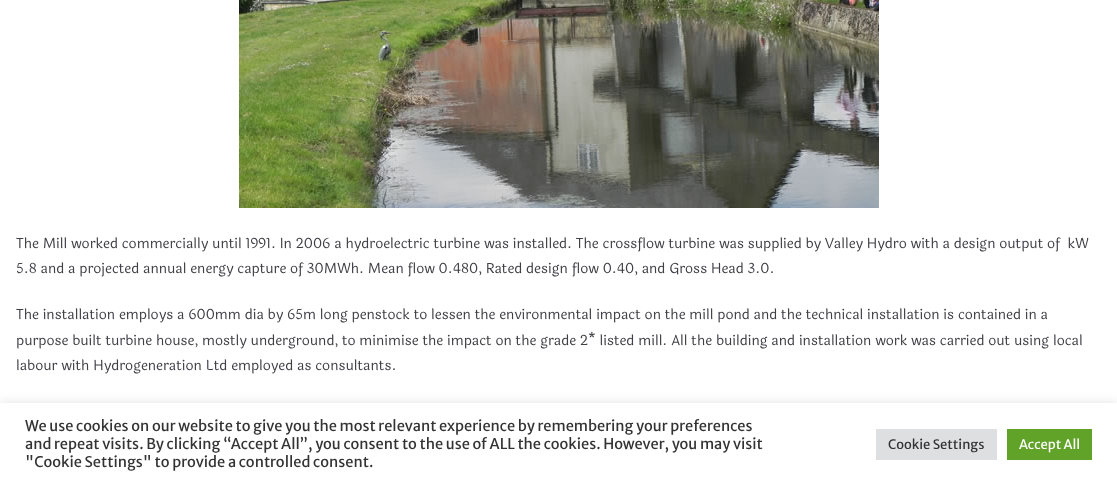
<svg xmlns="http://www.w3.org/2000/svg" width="1117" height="485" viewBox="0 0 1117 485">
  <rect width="100%" height="100%" fill="rgb(255,255,255)"/>
  <image x="239" y="0" width="640" height="208" href="pic1.png"/>
  <g font-family="Laila" font-size="14" fill="rgb(63,63,70)">
    <text xml:space="preserve"><tspan x="16" y="248">The Mill worked commercially until 1991. In 2006 a hydroelectric turbine was installed. The crossflow turbine was supplied by Valley Hydro with a design output of  kW</tspan><tspan x="16" y="273">5.8 and a projected annual energy capture of 30MWh. Mean flow 0.480, Rated design flow 0.40, and Gross Head 3.0.</tspan></text>
    <text>
      <tspan x="16" y="319">The installation employs a 600mm dia by 65m long penstock to lessen the environmental impact on the mill pond and the technical installation is contained in a</tspan>
      <tspan x="16" y="345">purpose built turbine house, mostly underground, to minimise the impact on the grade 2* listed mill. All the building and installation work was carried out using local</tspan>
      <tspan x="16" y="370">labour with Hydrogeneration Ltd employed as consultants.</tspan>
    </text>
  </g>
  <rect x="0" y="402" width="1117" height="82" fill="rgba(172,171,171,0.3)" filter="blur(5px)"/>
  <rect x="0" y="403" width="1117" height="82" fill="rgb(255,255,255)"/>
  <g font-family="Merriweather Sans" font-size="14.67" fill="rgb(51,51,51)">
    <text>
      <tspan x="25" y="431">We use cookies on our website to give you the most relevant experience by remembering your preferences</tspan>
      <tspan x="25" y="449">and repeat visits. By clicking “Accept All”, you consent to the use of ALL the cookies. However, you may visit</tspan>
      <tspan x="25" y="467">"Cookie Settings" to provide a controlled consent.</tspan>
    </text>
  </g>
  <rect x="876" y="429" width="121" height="31" fill="rgb(222,223,224)"/>
  <text x="888" y="449" font-family="Merriweather Sans" font-size="13" fill="rgb(51,51,51)">Cookie Settings</text>
  <rect x="1007" y="429" width="85" height="31" fill="rgb(97,162,41)"/>
  <text x="1019" y="449" font-family="Merriweather Sans" font-size="13" fill="rgb(255,255,255)">Accept All</text>
</svg>
